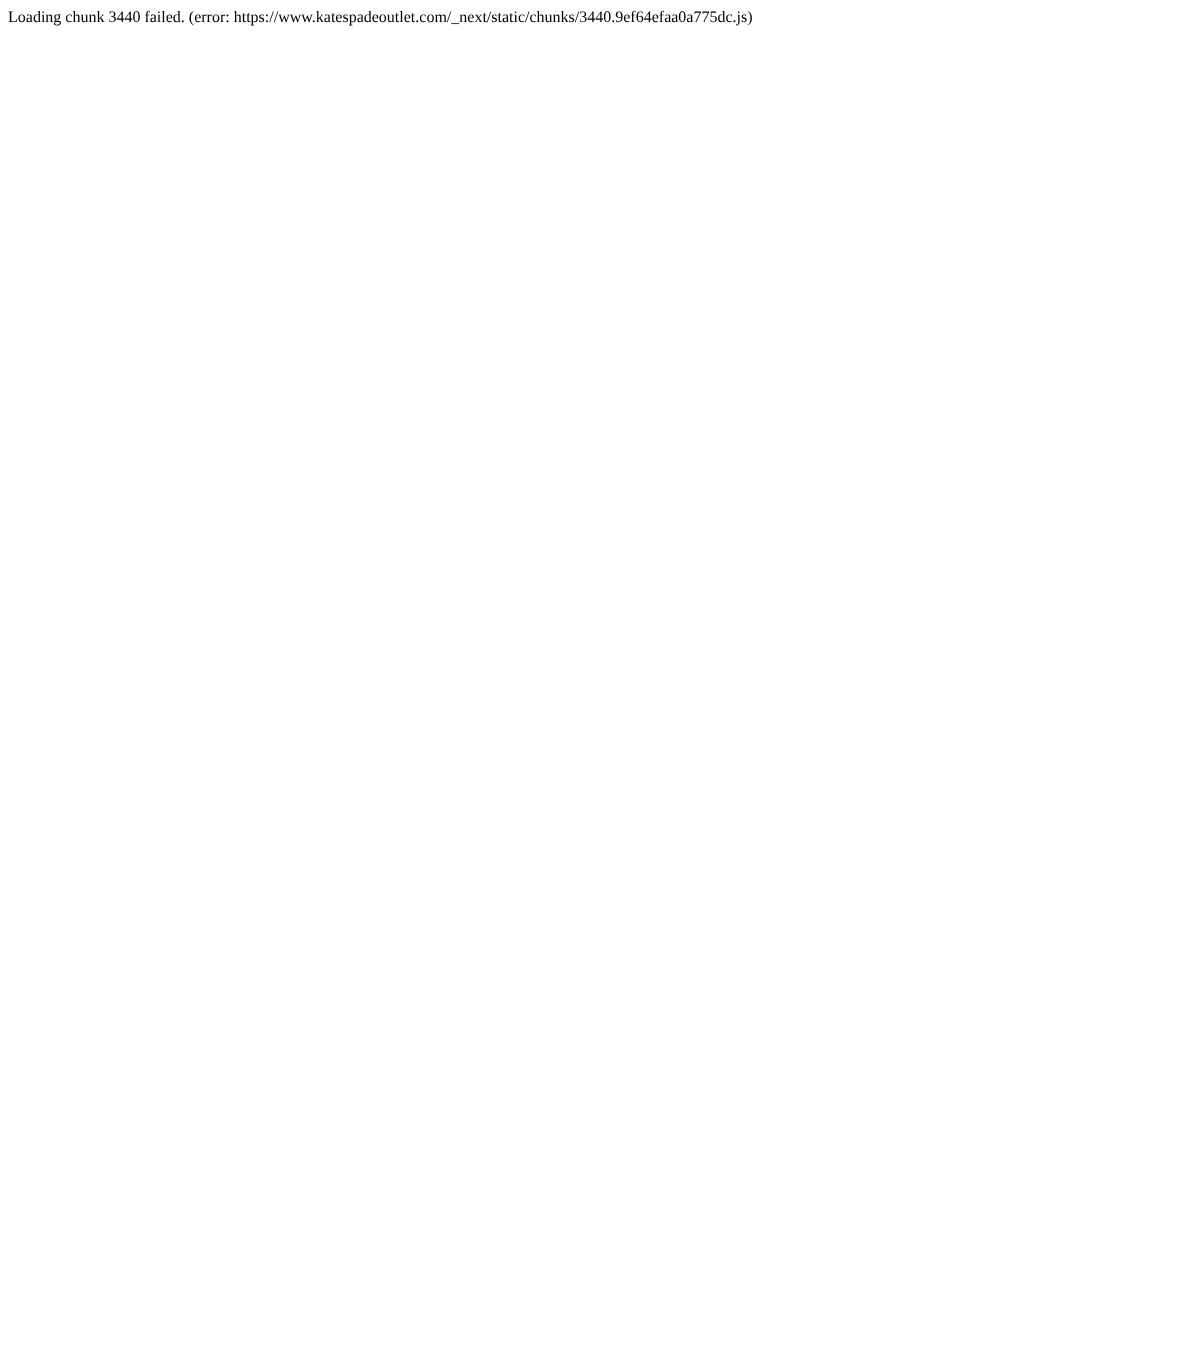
<svg xmlns="http://www.w3.org/2000/svg" width="1180" height="1352" viewBox="0 0 1180 1352">
  <rect width="100%" height="100%" fill="rgb(255,255,255)"/>
  <text x="8" y="22" font-family="Liberation Serif" font-size="16" fill="rgb(0,0,0)">Loading chunk 3440 failed. (error: https://www.katespadeoutlet.com/_next/static/chunks/3440.9ef64efaa0a775dc.js)</text>
</svg>
